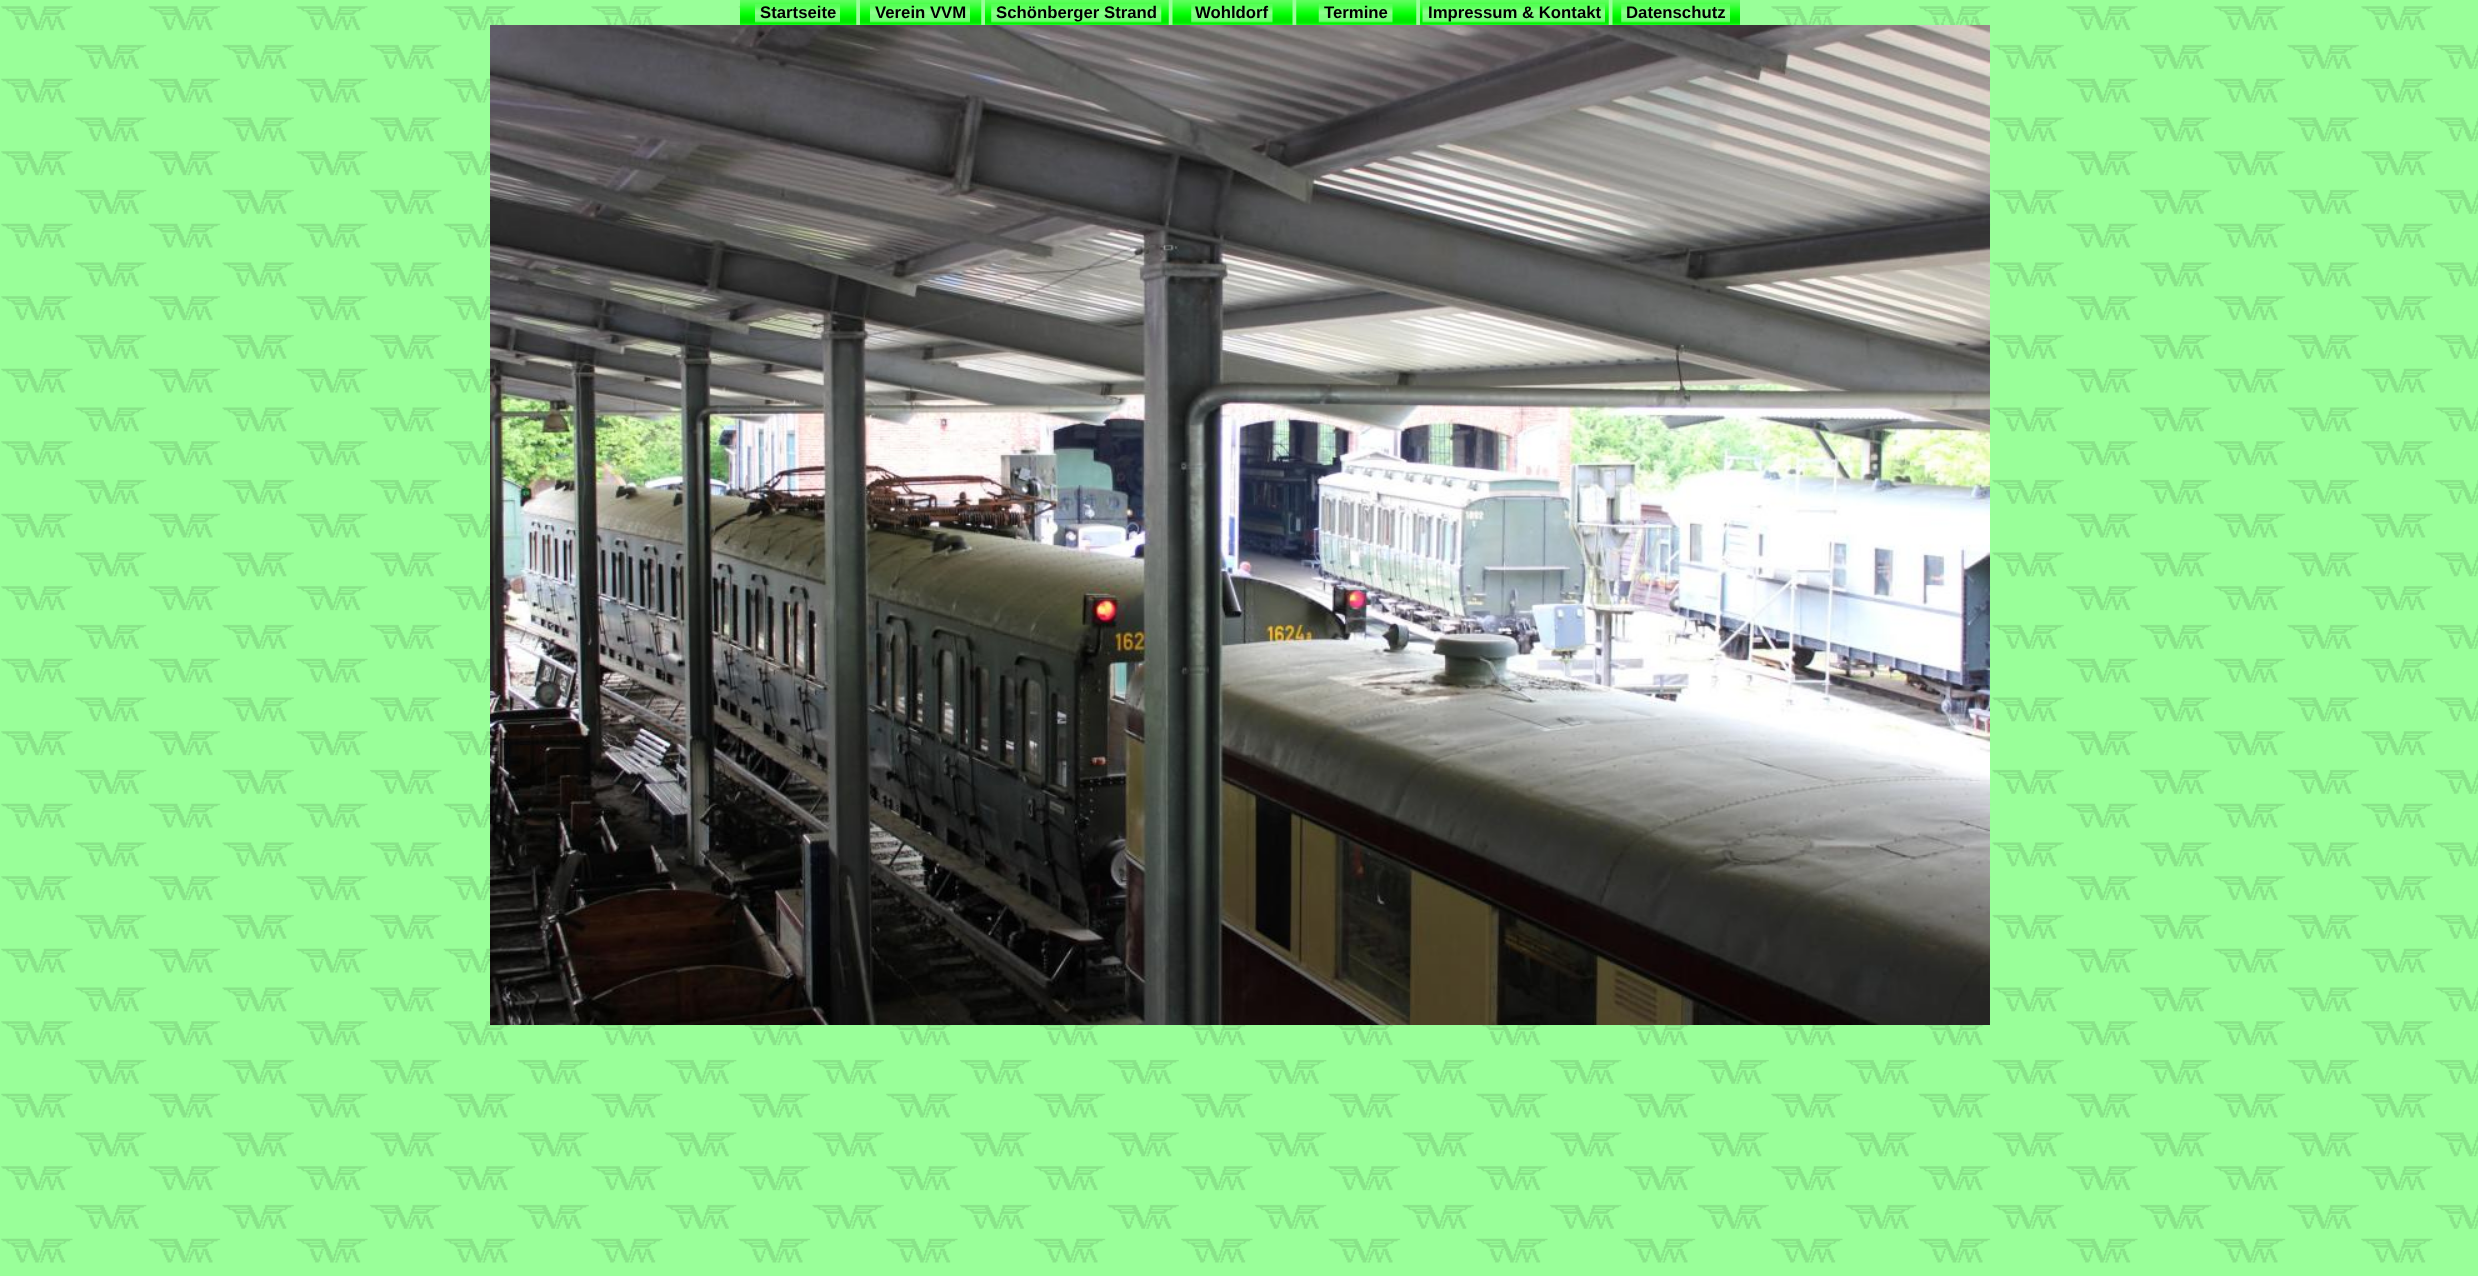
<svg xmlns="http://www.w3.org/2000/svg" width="2478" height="1276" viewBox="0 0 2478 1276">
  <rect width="100%" height="100%" fill="rgb(255,255,255)"/>
  <image x="0" y="0" width="2478" height="1276" href="pic1.png"/>
  <image x="740" y="0" width="117" height="25" href="pic2.png"/>
  <image x="755" y="4" width="85" height="19" href="pic3.png"/>
  <text x="760" y="18" font-family="Liberation Sans" font-size="16.75" font-weight="bold" fill="rgb(0,0,1)">Startseite</text>
  <image x="860" y="0" width="122" height="25" href="pic4.png"/>
  <image x="870" y="4" width="100" height="19" href="pic5.png"/>
  <text x="875" y="18" font-family="Liberation Sans" font-size="16.75" font-weight="bold" fill="rgb(0,0,1)">Verein VVM</text>
  <image x="985" y="0" width="184" height="25" href="pic6.png"/>
  <image x="991" y="4" width="171" height="19" href="pic7.png"/>
  <text x="996" y="18" font-family="Liberation Sans" font-size="16.75" font-weight="bold" fill="rgb(0,0,1)">Schönberger Strand</text>
  <image x="1172" y="0" width="121" height="25" href="pic8.png"/>
  <image x="1191" y="4" width="82" height="19" href="pic9.png"/>
  <text x="1195" y="18" font-family="Liberation Sans" font-size="16.75" font-weight="bold" fill="rgb(0,0,1)">Wohldorf</text>
  <image x="1296" y="0" width="121" height="25" href="pic10.png"/>
  <image x="1318" y="4" width="75" height="19" href="pic11.png"/>
  <text x="1324" y="18" font-family="Liberation Sans" font-size="16.75" font-weight="bold" fill="rgb(0,0,1)">Termine</text>
  <image x="1420" y="0" width="189" height="25" href="pic12.png"/>
  <image x="1422" y="4" width="183" height="19" href="pic13.png"/>
  <text x="1428" y="18" font-family="Liberation Sans" font-size="16.75" font-weight="bold" fill="rgb(0,0,1)">Impressum &amp; Kontakt</text>
  <image x="1612" y="0" width="128" height="25" href="pic14.png"/>
  <image x="1621" y="4" width="109" height="19" href="pic15.png"/>
  <text x="1626" y="18" font-family="Liberation Sans" font-size="16.75" font-weight="bold" fill="rgb(0,0,1)">Datenschutz</text>
  <image x="490" y="25" width="1500" height="1000" href="pic16.png"/>
</svg>
